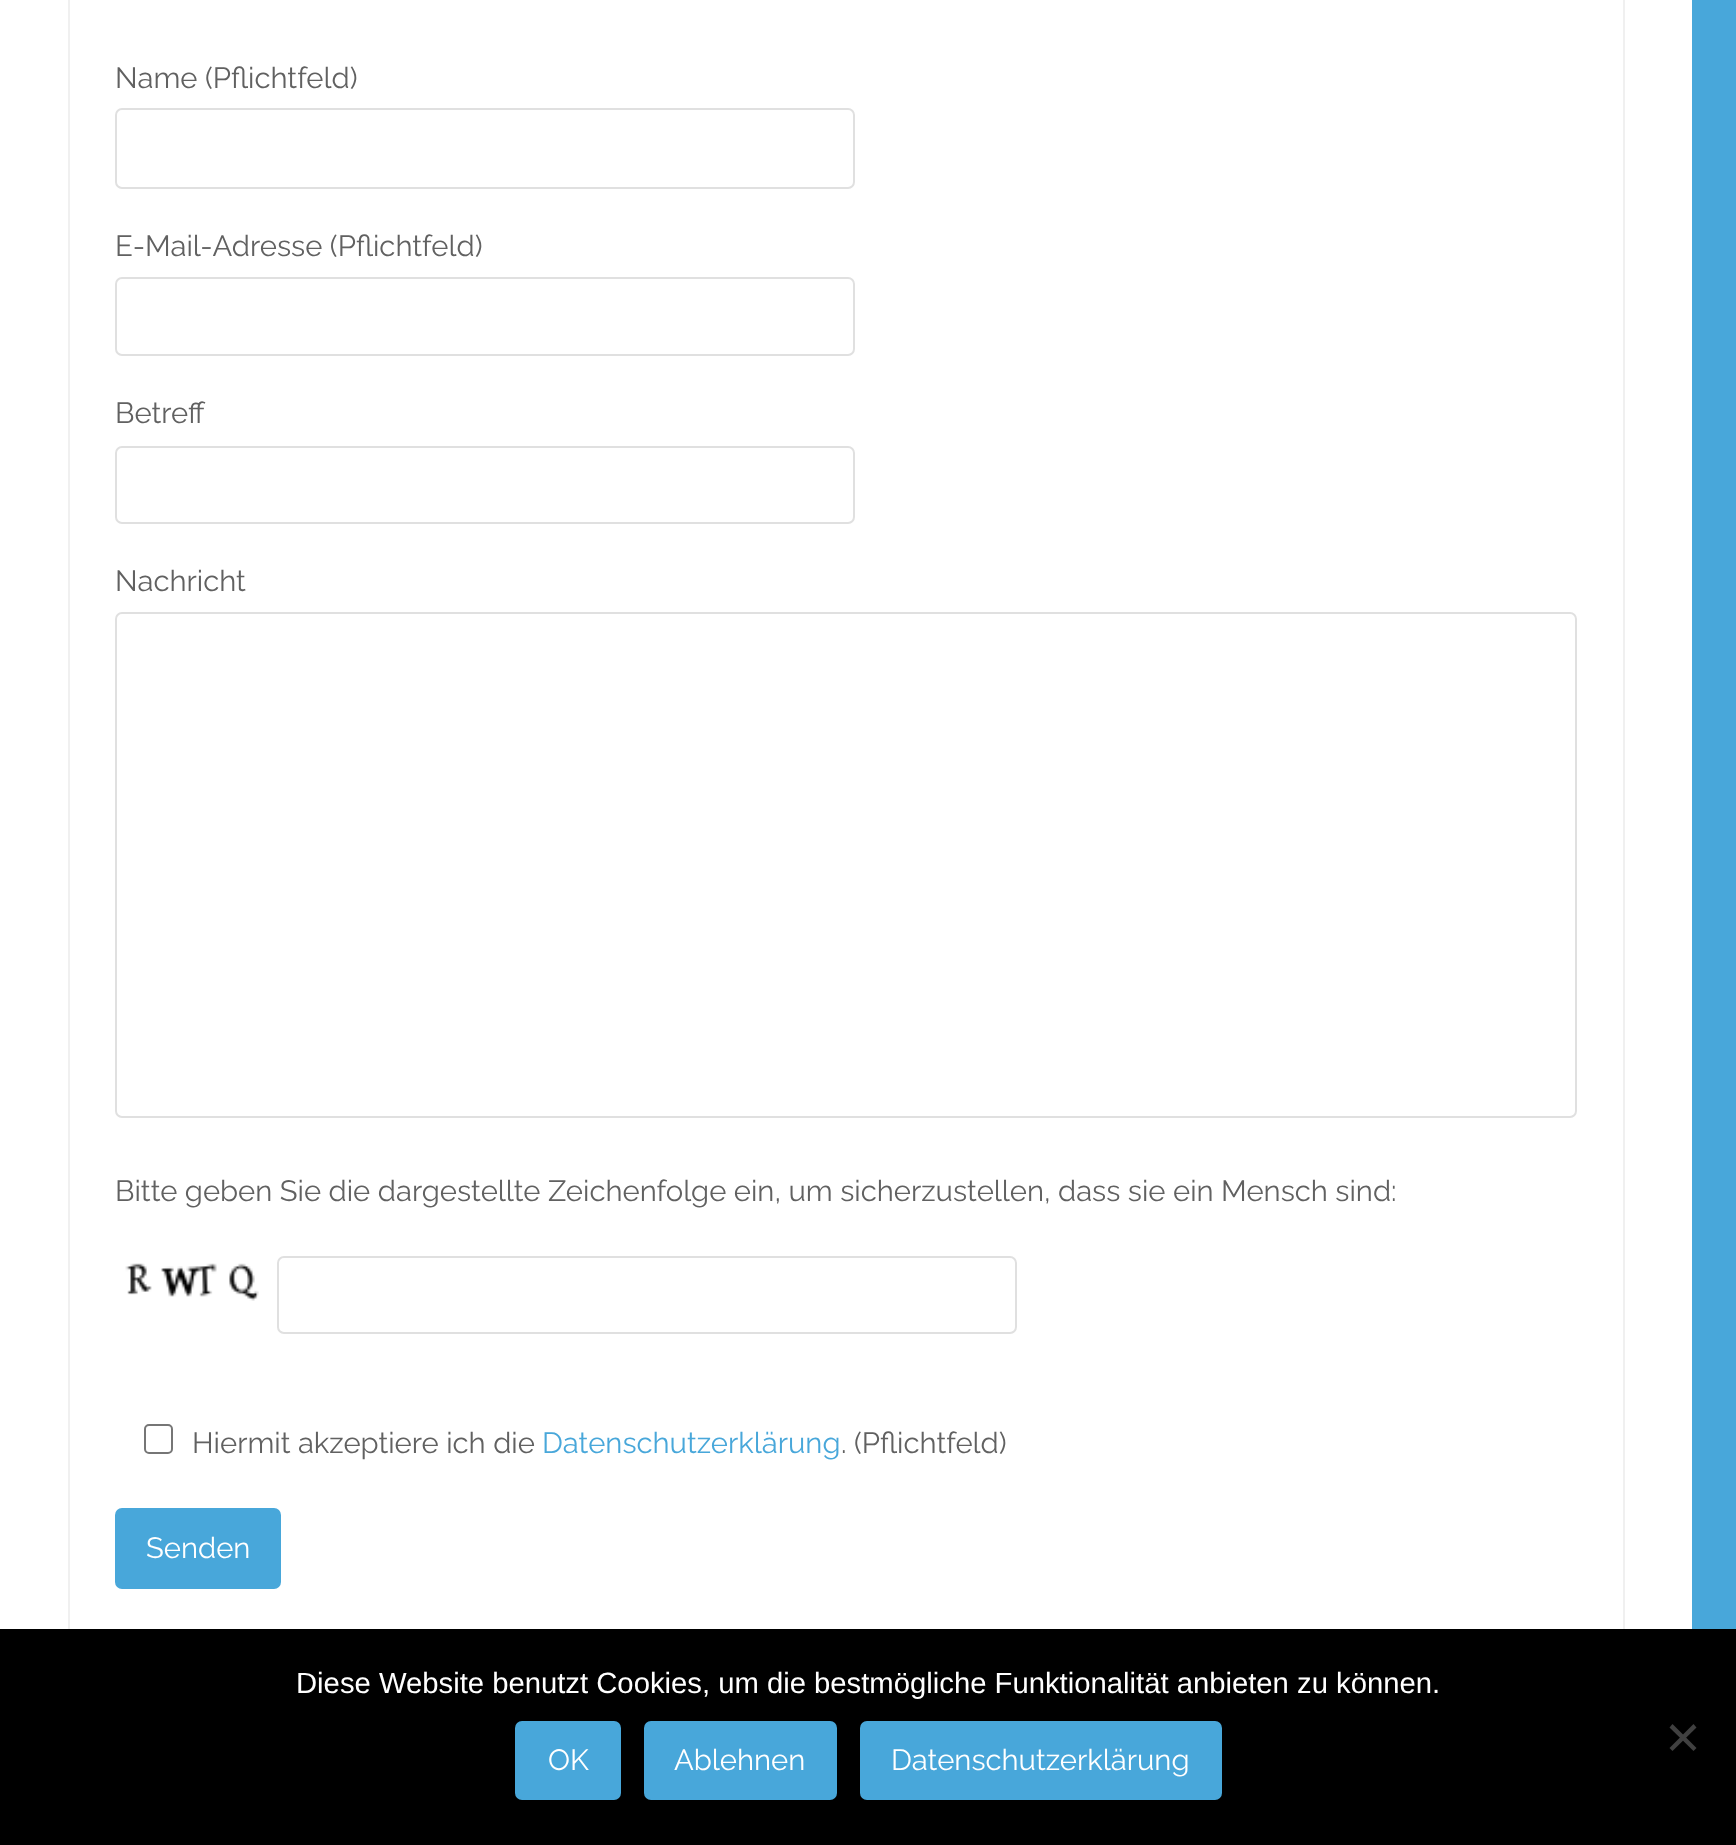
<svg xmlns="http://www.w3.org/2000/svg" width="1736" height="1845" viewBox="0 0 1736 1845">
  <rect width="100%" height="100%" fill="rgb(255,255,255)"/>
  <rect x="1692" y="0" width="44" height="1629" fill="rgb(72,167,218)"/>
  <rect x="69" y="-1" width="1555" height="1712" fill="none" stroke="rgb(240,240,240)" stroke-width="2"/>
  <text x="115" y="88" font-family="Raleway" font-size="29.25" fill="rgb(97,97,97)">Name (Pflichtfeld)</text>
  <rect x="116" y="109" width="738" height="79" rx="6" fill="none" stroke="rgb(224,224,224)" stroke-width="2"/>
  <text x="115" y="256" font-family="Raleway" font-size="29.25" fill="rgb(97,97,97)">E-Mail-Adresse (Pflichtfeld)</text>
  <rect x="116" y="278" width="738" height="77" rx="6" fill="none" stroke="rgb(224,224,224)" stroke-width="2"/>
  <text x="115" y="423" font-family="Raleway" font-size="29.25" fill="rgb(97,97,97)">Betreff</text>
  <rect x="116" y="447" width="738" height="76" rx="6" fill="none" stroke="rgb(224,224,224)" stroke-width="2"/>
  <text x="115" y="591" font-family="Raleway" font-size="29.25" fill="rgb(97,97,97)">Nachricht</text>
  <rect x="116" y="613" width="1460" height="504" rx="6" fill="none" stroke="rgb(224,224,224)" stroke-width="2"/>
  <text x="115" y="1201" font-family="Raleway" font-size="29.25" fill="rgb(97,97,97)">Bitte geben Sie die dargestellte Zeichenfolge ein, um sicherzustellen, dass sie ein Mensch sind:</text>
  <image x="125" y="1263" width="134" height="38" href="pic1.png"/>
  <rect x="278" y="1257" width="738" height="76" rx="6" fill="none" stroke="rgb(224,224,224)" stroke-width="2"/>
  <rect x="145" y="1425" width="27" height="28" rx="4" fill="none" stroke="rgb(118,118,118)" stroke-width="2"/>
  <text x="192" y="1453" font-family="Raleway" font-size="29.25" fill="rgb(97,97,97)">Hiermit akzeptiere ich die</text>
  <text x="542" y="1453" font-family="Raleway" font-size="29.25" fill="rgb(72,167,218)">Datenschutzerklärung</text>
  <text x="841" y="1453" font-family="Raleway" font-size="29.25" fill="rgb(97,97,97)">. (Pflichtfeld)</text>
  <rect x="115" y="1508" width="166" height="81" rx="7" fill="rgb(72,167,218)"/>
  <text x="146" y="1558" font-family="Raleway" font-size="29.25" fill="rgb(255,255,255)">Senden</text>
  <rect x="0" y="1629" width="1736" height="216" fill="rgb(0,0,0)"/>
  <text x="296" y="1693" font-family="Liberation Sans" font-size="29.25" fill="rgb(255,255,255)">Diese Website benutzt Cookies, um die bestmögliche Funktionalität anbieten zu können.</text>
  <path d="M1693.5 1724L1696.5 1727.5L1672.5 1751L1669.5 1748Z" fill="rgb(64,64,64)"/>
  <path d="M1669.5 1727.5L1672.5 1724L1696.5 1748L1693.5 1751Z" fill="rgb(64,64,64)"/>
  <rect x="515" y="1721" width="106" height="79" rx="7" fill="rgb(72,167,218)"/>
  <text x="548" y="1770" font-family="Raleway" font-size="29.25" fill="rgb(255,255,255)">OK</text>
  <rect x="644" y="1721" width="193" height="79" rx="7" fill="rgb(72,167,218)"/>
  <text x="674" y="1770" font-family="Raleway" font-size="29.25" fill="rgb(255,255,255)">Ablehnen</text>
  <rect x="860" y="1721" width="362" height="79" rx="7" fill="rgb(72,167,218)"/>
  <text x="891" y="1770" font-family="Raleway" font-size="29.25" fill="rgb(255,255,255)">Datenschutzerklärung</text>
</svg>
